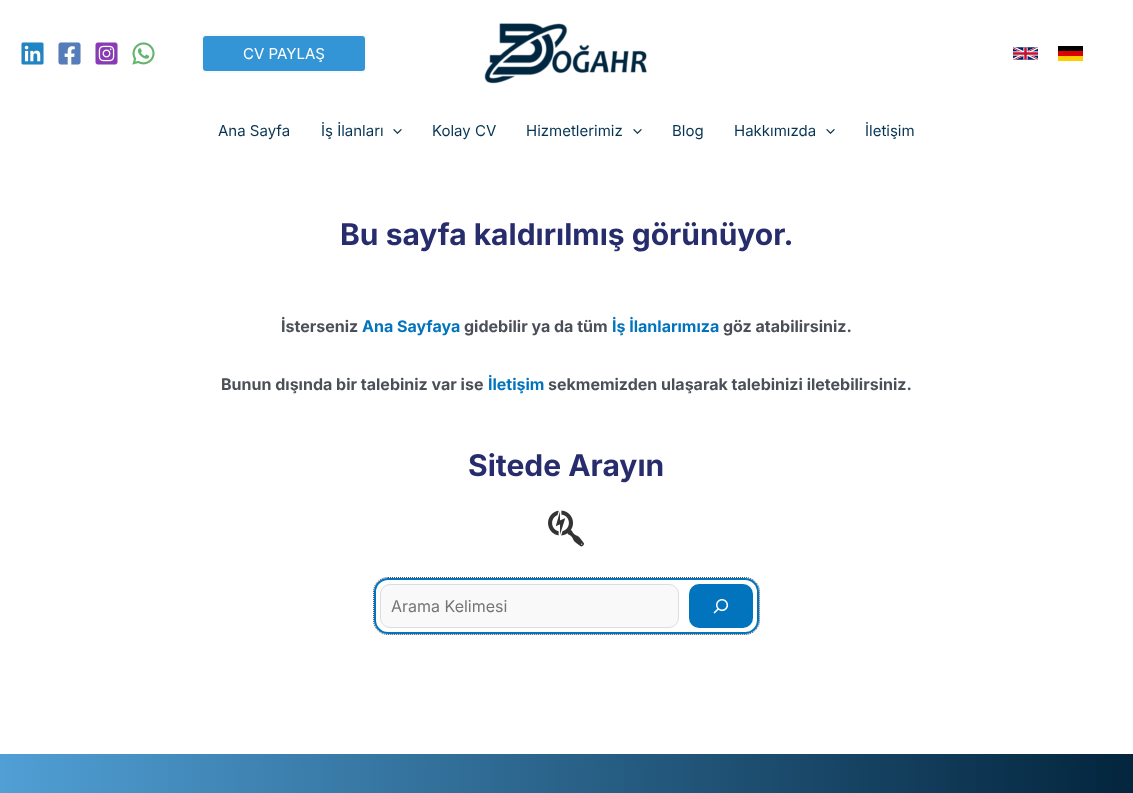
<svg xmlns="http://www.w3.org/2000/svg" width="1133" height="793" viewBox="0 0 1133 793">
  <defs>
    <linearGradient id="g1" gradientUnits="userSpaceOnUse" x1="0" y1="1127" x2="1133" y2="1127"><stop offset="0" stop-color="rgb(80,159,213)"/><stop offset="1" stop-color="rgb(3,37,61)"/></linearGradient>
  </defs>
  <rect width="100%" height="100%" fill="rgb(255,255,255)"/>
  <image x="21" y="42" width="23" height="23" href="pic1.png"/>
  <image x="58" y="42" width="23" height="23" href="pic2.png"/>
  <image x="95" y="42" width="23" height="23" href="pic3.png"/>
  <image x="132" y="42" width="23" height="23" href="pic4.png"/>
  <rect x="202" y="35" width="164" height="37" rx="4" fill="rgb(51,149,214)" stroke="rgb(249,249,249)" stroke-width="2"/>
  <text x="243" y="59" font-family="Inter" font-size="15" fill="rgb(255,255,255)">CV PAYLAŞ</text>
  <image x="484" y="23" width="163" height="61" href="pic5.png"/>
  <image x="1013" y="47" width="25" height="13" href="pic6.png"/>
  <rect x="1058" y="46" width="25" height="5" fill="rgb(0,0,0)"/>
  <rect x="1058" y="51" width="25" height="5" fill="rgb(221,0,0)"/>
  <rect x="1058" y="56" width="25" height="5" fill="rgb(255,206,0)"/>
  <g font-family="Inter" font-size="15" fill="rgb(7,52,82)">
    <text x="218" y="136">Ana Sayfa</text>
    <text x="321" y="136">İş İlanları</text>
  </g>
  <image x="393" y="129" width="9" height="5" href="pic7.png"/>
  <g font-family="Inter" font-size="15" fill="rgb(7,52,82)">
    <text x="432" y="136">Kolay CV</text>
    <text x="526" y="136">Hizmetlerimiz</text>
  </g>
  <image x="633" y="129" width="9" height="5" href="pic7.png"/>
  <g font-family="Inter" font-size="15" fill="rgb(7,52,82)">
    <text x="672" y="136">Blog</text>
    <text x="734" y="136">Hakkımızda</text>
  </g>
  <image x="826" y="129" width="9" height="5" href="pic7.png"/>
  <text x="865" y="136" font-family="Inter" font-size="15" fill="rgb(7,52,82)">İletişim</text>
  <text x="340" y="245" font-family="Inter" font-size="30" font-weight="bold" fill="rgb(39,44,108)">Bu sayfa kaldırılmış görünüyor.</text>
  <text x="281" y="332" font-family="Inter" font-size="16" font-weight="bold" fill="rgb(75,79,88)">İsterseniz</text>
  <text x="362" y="332" font-family="Inter" font-size="16" font-weight="bold" fill="rgb(2,116,190)">Ana Sayfaya</text>
  <text x="464" y="332" font-family="Inter" font-size="16" font-weight="bold" fill="rgb(75,79,88)">gidebilir ya da tüm</text>
  <text x="612" y="332" font-family="Inter" font-size="16" font-weight="bold" fill="rgb(2,116,190)">İş İlanlarımıza</text>
  <g font-family="Inter" font-size="16" font-weight="bold" fill="rgb(75,79,88)">
    <text x="723" y="332">göz atabilirsiniz.</text>
    <text x="221" y="390">Bunun dışında bir talebiniz var ise</text>
  </g>
  <text x="488" y="390" font-family="Inter" font-size="16" font-weight="bold" fill="rgb(2,116,190)">İletişim</text>
  <text x="548" y="390" font-family="Inter" font-size="16" font-weight="bold" fill="rgb(75,79,88)">sekmemizden ulaşarak talebinizi iletebilirsiniz.</text>
  <text x="468" y="476" font-family="Inter" font-size="30" font-weight="bold" fill="rgb(39,44,108)">Sitede Arayın</text>
  <image x="548" y="510" width="36" height="37" href="pic8.png"/>
  <rect x="375" y="579" width="383" height="54" rx="13" fill="none" stroke="rgb(2,116,190)" stroke-width="2"/>
  <rect x="380.5" y="584.5" width="298" height="43" rx="9.5" fill="rgb(249,249,249)" stroke="rgb(221,221,221)"/>
  <text x="391" y="612" font-family="Inter" font-size="16" fill="rgb(117,117,117)">Arama Kelimesi</text>
  <rect x="689" y="584" width="64" height="44" rx="10" fill="rgb(2,116,190)"/>
  <path d="M388 577.5H745C753 577.5 759.5 584 759.5 592V620C759.5 628 753 634.5 745 634.5H388C380 634.5 373.5 628 373.5 620V592C373.5 584 380 577.5 388 577.5Z" fill="none" stroke="rgb(75,79,88)" stroke-dasharray="1 1"/>
  <image x="713" y="599" width="16" height="15" href="pic9.png"/>
  <rect x="0" y="754" width="1133" height="39" fill="url(#g1)"/>
</svg>
